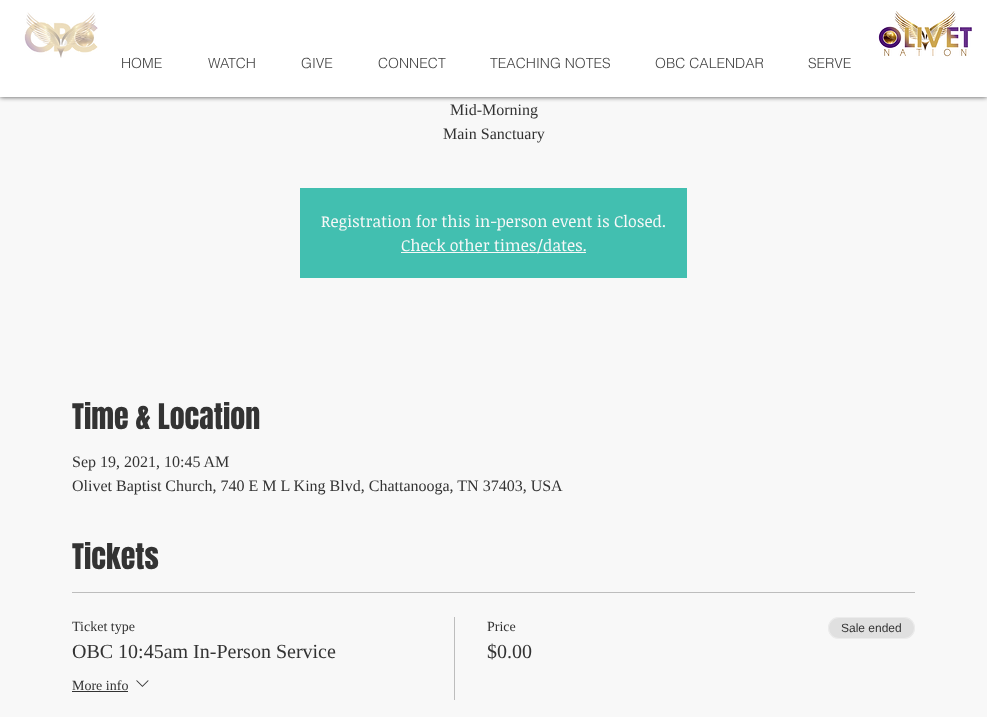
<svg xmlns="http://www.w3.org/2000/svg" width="987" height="717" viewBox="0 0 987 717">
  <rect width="100%" height="100%" fill="rgb(248,248,248)"/>
  <rect x="0" y="0" width="987" height="97" fill="rgba(0,0,0,0.7)" filter="blur(2.5px)"/>
  <rect x="0" y="0" width="987" height="97" fill="rgb(255,255,255)"/>
  <image x="24" y="12" width="74" height="46" href="pic1.png"/>
  <image x="878" y="11" width="94" height="46" href="pic2.png"/>
  <g font-family="helvetica" font-size="14" font-weight="300" fill="rgb(68,68,68)">
    <text x="121" y="68">HOME</text>
    <text x="208" y="68">WATCH</text>
    <text x="301" y="68">GIVE</text>
    <text x="378" y="68">CONNECT</text>
    <text x="490" y="68">TEACHING NOTES</text>
    <text x="655" y="68">OBC CALENDAR</text>
    <text x="808" y="68">SERVE</text>
  </g>
  <g font-family="Liberation Serif" font-size="16" fill="rgb(51,51,51)">
    <text x="450" y="115">Mid-Morning</text>
    <text x="443" y="139">Main Sanctuary</text>
  </g>
  <rect x="300" y="188" width="387" height="90" fill="rgb(66,191,176)"/>
  <text x="321" y="227" font-family="Noticia Text" font-size="16" fill="rgb(248,248,248)">Registration for this in-person event is Closed.</text>
  <rect x="401" y="252" width="185" height="1" fill="rgb(248,248,248)"/>
  <text x="401" y="251" font-family="Noticia Text" font-size="16" fill="rgb(248,248,248)">Check other times/dates.</text>
  <text x="72" y="429" font-family="Anton" font-size="30" fill="rgb(51,51,51)">Time &amp; Location</text>
  <g font-family="Liberation Serif" font-size="16" fill="rgb(51,51,51)">
    <text>
      <tspan x="72" y="467">Sep 19, 2021, 10:45 AM</tspan>
      <tspan x="72" y="491">Olivet Baptist Church, 740 E M L King Blvd, Chattanooga, TN 37403, USA</tspan>
    </text>
  </g>
  <text x="72" y="569" font-family="Anton" font-size="30" fill="rgb(51,51,51)">Tickets</text>
  <rect x="72" y="592" width="843" height="1" fill="rgb(189,189,189)"/>
  <text x="72" y="631" font-family="Liberation Serif" font-size="14" fill="rgb(51,51,51)">Ticket type</text>
  <text x="72" y="658" font-family="Liberation Serif" font-size="20" fill="rgb(51,51,51)">OBC 10:45am In-Person Service</text>
  <text x="72" y="690" font-family="Liberation Serif" font-size="14" fill="rgb(51,51,51)">More info</text>
  <rect x="72" y="691" width="56" height="1" fill="rgb(51,51,51)"/>
  <image x="136" y="680" width="13" height="7" href="pic3.png"/>
  <rect x="454" y="617" width="1" height="83" fill="rgb(189,189,189)"/>
  <text x="487" y="631" font-family="Liberation Serif" font-size="14" fill="rgb(51,51,51)">Price</text>
  <text x="487" y="658" font-family="Liberation Serif" font-size="20" fill="rgb(51,51,51)">$0.00</text>
  <rect x="828" y="617" width="87" height="22" rx="11" fill="rgb(224,224,224)"/>
  <rect x="828.5" y="617.5" width="86" height="21" rx="10.5" fill="none" stroke="rgba(255,255,255,0.4)"/>
  <text x="841" y="632" font-family="Liberation Sans" font-size="12" fill="rgb(51,51,51)">Sale ended</text>
</svg>
